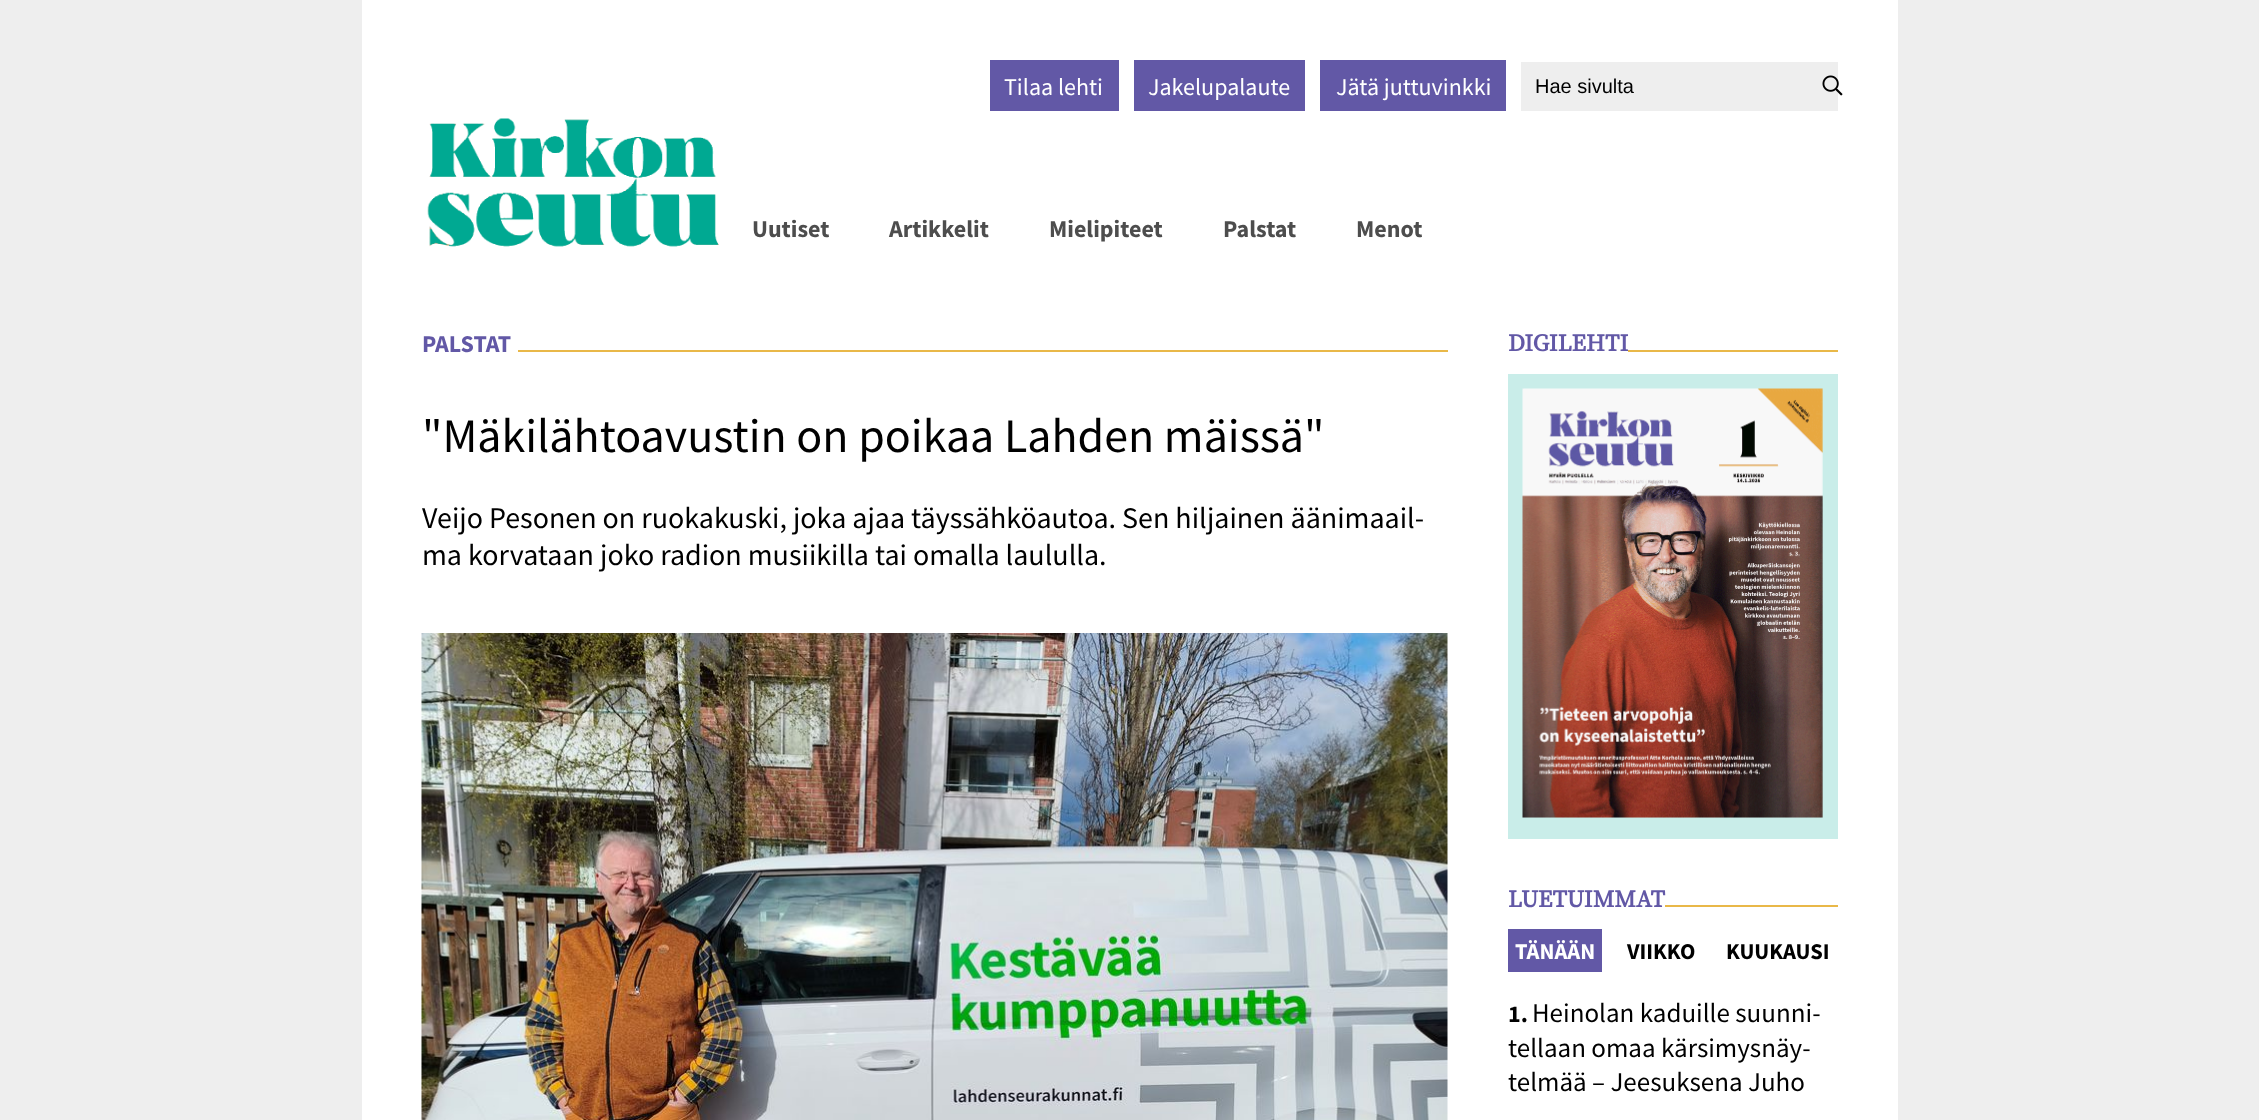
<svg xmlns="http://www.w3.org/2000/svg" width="2259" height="1120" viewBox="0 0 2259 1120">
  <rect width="100%" height="100%" fill="rgb(238,238,238)"/>
  <rect x="362" y="0" width="1536" height="1120" fill="rgb(255,255,255)"/>
  <rect x="990" y="60" width="129" height="51" fill="rgb(98,88,166)"/>
  <text x="1004" y="95" font-family="Source Sans Pro" font-size="24" fill="rgb(255,255,255)">Tilaa lehti</text>
  <rect x="1134" y="60" width="171" height="51" fill="rgb(98,88,166)"/>
  <text x="1148" y="95" font-family="Source Sans Pro" font-size="24" fill="rgb(255,255,255)">Jakelupalaute</text>
  <rect x="1320" y="60" width="186" height="51" fill="rgb(98,88,166)"/>
  <text x="1336" y="95" font-family="Source Sans Pro" font-size="24" fill="rgb(255,255,255)">Jätä juttuvinkki</text>
  <rect x="1521" y="62" width="317" height="49" fill="rgb(238,238,238)"/>
  <text x="1535" y="93" font-family="Liberation Sans" font-size="20" fill="rgb(0,0,0)">Hae sivulta</text>
  <image x="1822" y="75" width="21" height="21" href="pic1.png"/>
  <image x="427" y="118" width="292" height="129" href="pic2.png"/>
  <g font-family="Source Sans Pro" font-size="24" font-weight="bold" fill="rgb(77,77,77)">
    <text x="752" y="237">Uutiset</text>
    <text x="889" y="237">Artikkelit</text>
    <text x="1049" y="237">Mielipiteet</text>
    <text x="1223" y="237">Palstat</text>
    <text x="1356" y="237">Menot</text>
  </g>
  <text x="422" y="352" font-family="Source Sans Pro" font-size="24" font-weight="bold" fill="rgb(98,88,166)">PALSTAT</text>
  <rect x="518" y="350" width="930" height="2" fill="rgb(233,184,72)"/>
  <text x="422" y="452" font-family="Source Sans Pro" font-size="48" fill="rgb(0,0,0)">"Mäkilähtoavustin on poikaa Lahden mäissä"</text>
  <g font-family="Source Sans Pro" font-size="30" fill="rgb(0,0,0)">
    <text>
      <tspan x="422" y="528">Veijo Pesonen on ruokakuski, joka ajaa täyssähköautoa. Sen hiljainen äänimaail-</tspan>
      <tspan x="422" y="565">ma korvataan joko radion musiikilla tai omalla laululla.</tspan>
    </text>
  </g>
  <image x="421" y="633" width="1027" height="487" href="pic3.png"/>
  <text x="1508" y="351" font-family="Source Serif Pro" font-size="24" font-weight="bold" fill="rgb(98,88,166)">DIGILEHTI</text>
  <rect x="1628" y="350" width="210" height="2" fill="rgb(233,184,72)"/>
  <rect x="1508" y="374" width="330" height="465" fill="rgb(201,237,233)"/>
  <image x="1522" y="388" width="301" height="430" href="pic4.png"/>
  <text x="1508" y="907" font-family="Source Serif Pro" font-size="24" font-weight="bold" fill="rgb(98,88,166)">LUETUIMMAT</text>
  <rect x="1665" y="905" width="173" height="2" fill="rgb(233,184,72)"/>
  <rect x="1508" y="929" width="94" height="43" fill="rgb(98,88,166)"/>
  <text x="1515" y="959" font-family="Source Sans Pro" font-size="22.5" font-weight="bold" fill="rgb(255,255,255)">TÄNÄÄN</text>
  <g font-family="Source Sans Pro" font-size="22.5" font-weight="bold" fill="rgb(0,0,0)">
    <text x="1627" y="959">VIIKKO</text>
    <text x="1726" y="959">KUUKAUSI</text>
  </g>
  <g font-family="Source Sans Pro" font-size="27" fill="rgb(0,0,0)">
    <text x="1532" y="1022">Heinolan kaduille suunni-</text>
    <text>
      <tspan x="1508" y="1057">tellaan omaa kärsimysnäy-</tspan>
      <tspan x="1508" y="1091">telmää – Jeesuksena Juho</tspan>
    </text>
  </g>
  <text x="1508" y="1022" font-family="Source Sans Pro" font-size="24" font-weight="bold" fill="rgb(0,0,0)">1.</text>
</svg>
